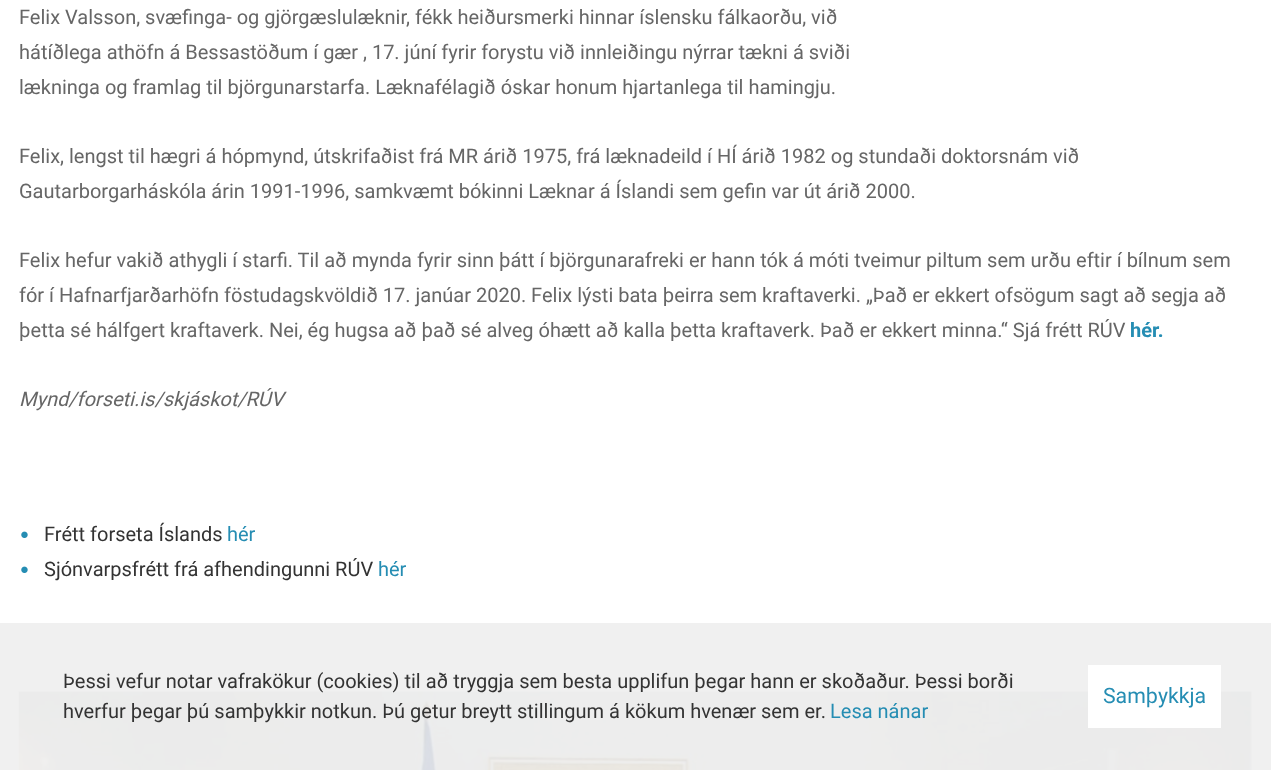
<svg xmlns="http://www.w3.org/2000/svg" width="1271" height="770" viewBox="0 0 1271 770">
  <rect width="100%" height="100%" fill="rgb(255,255,255)"/>
  <rect x="0" y="623" width="1271" height="147" fill="rgb(240,240,240)"/>
  <g font-family="Roboto" font-size="20" fill="rgb(102,102,102)">
    <text>
      <tspan x="19" y="24">Felix Valsson, svæfinga- og gjörgæslulæknir, fékk heiðursmerki hinnar íslensku fálkaorðu, við</tspan>
      <tspan x="19" y="59">hátíðlega athöfn á Bessastöðum í gær , 17. júní fyrir forystu við innleiðingu nýrrar tækni á sviði</tspan>
      <tspan x="19" y="94">lækninga og framlag til björgunarstarfa. Læknafélagið óskar honum hjartanlega til hamingju.</tspan>
    </text>
    <text>
      <tspan x="19" y="163">Felix, lengst til hægri á hópmynd, útskrifaðist frá MR árið 1975, frá læknadeild í HÍ árið 1982 og stundaði doktorsnám við</tspan>
      <tspan x="19" y="198">Gautarborgarháskóla árin 1991-1996, samkvæmt bókinni Læknar á Íslandi sem gefin var út árið 2000.</tspan>
    </text>
    <text>
      <tspan x="19" y="267">Felix hefur vakið athygli í starfi. Til að mynda fyrir sinn þátt í björgunarafreki er hann tók á móti tveimur piltum sem urðu eftir í bílnum sem</tspan>
      <tspan x="19" y="302">fór í Hafnarfjarðarhöfn föstudagskvöldið 17. janúar 2020. Felix lýsti bata þeirra sem kraftaverki. „Það er ekkert ofsögum sagt að segja að</tspan>
      <tspan x="19" y="337">þetta sé hálfgert kraftaverk. Nei, ég hugsa að það sé alveg óhætt að kalla þetta kraftaverk. Það er ekkert minna.“ Sjá frétt RÚV</tspan>
    </text>
  </g>
  <text x="1130" y="337" font-family="Roboto" font-size="20" font-weight="bold" fill="rgb(37,141,179)">hér.</text>
  <text x="19" y="406" font-family="Roboto" font-size="20" font-style="italic" fill="rgb(102,102,102)">Mynd/forseti.is/skjáskot/RÚV</text>
  <image x="21" y="531" width="7" height="7" href="pic1.png"/>
  <text x="44" y="541" font-family="Roboto" font-size="20" fill="rgb(51,51,51)">Frétt forseta Íslands</text>
  <text x="227" y="541" font-family="Roboto" font-size="20" fill="rgb(37,141,179)">hér</text>
  <image x="21" y="566" width="7" height="7" href="pic1.png"/>
  <text x="44" y="576" font-family="Roboto" font-size="20" fill="rgb(51,51,51)">Sjónvarpsfrétt frá afhendingunni RÚV</text>
  <text x="378" y="576" font-family="Roboto" font-size="20" fill="rgb(37,141,179)">hér</text>
  <image x="18" y="691" width="1234" height="79" href="pic2.png"/>
  <g font-family="Roboto" font-size="20" fill="rgb(51,51,51)">
    <text>
      <tspan x="63" y="688">Þessi vefur notar vafrakökur (cookies) til að tryggja sem besta upplifun þegar hann er skoðaður. Þessi borði</tspan>
      <tspan x="63" y="718">hverfur þegar þú samþykkir notkun. Þú getur breytt stillingum á kökum hvenær sem er.</tspan>
    </text>
  </g>
  <text x="830" y="718" font-family="Roboto" font-size="20" fill="rgb(37,141,179)">Lesa nánar</text>
  <rect x="1088" y="665" width="133" height="63" fill="rgb(255,255,255)"/>
  <text x="1103" y="703" font-family="Roboto" font-size="21.25" fill="rgb(37,141,179)">Samþykkja</text>
</svg>
